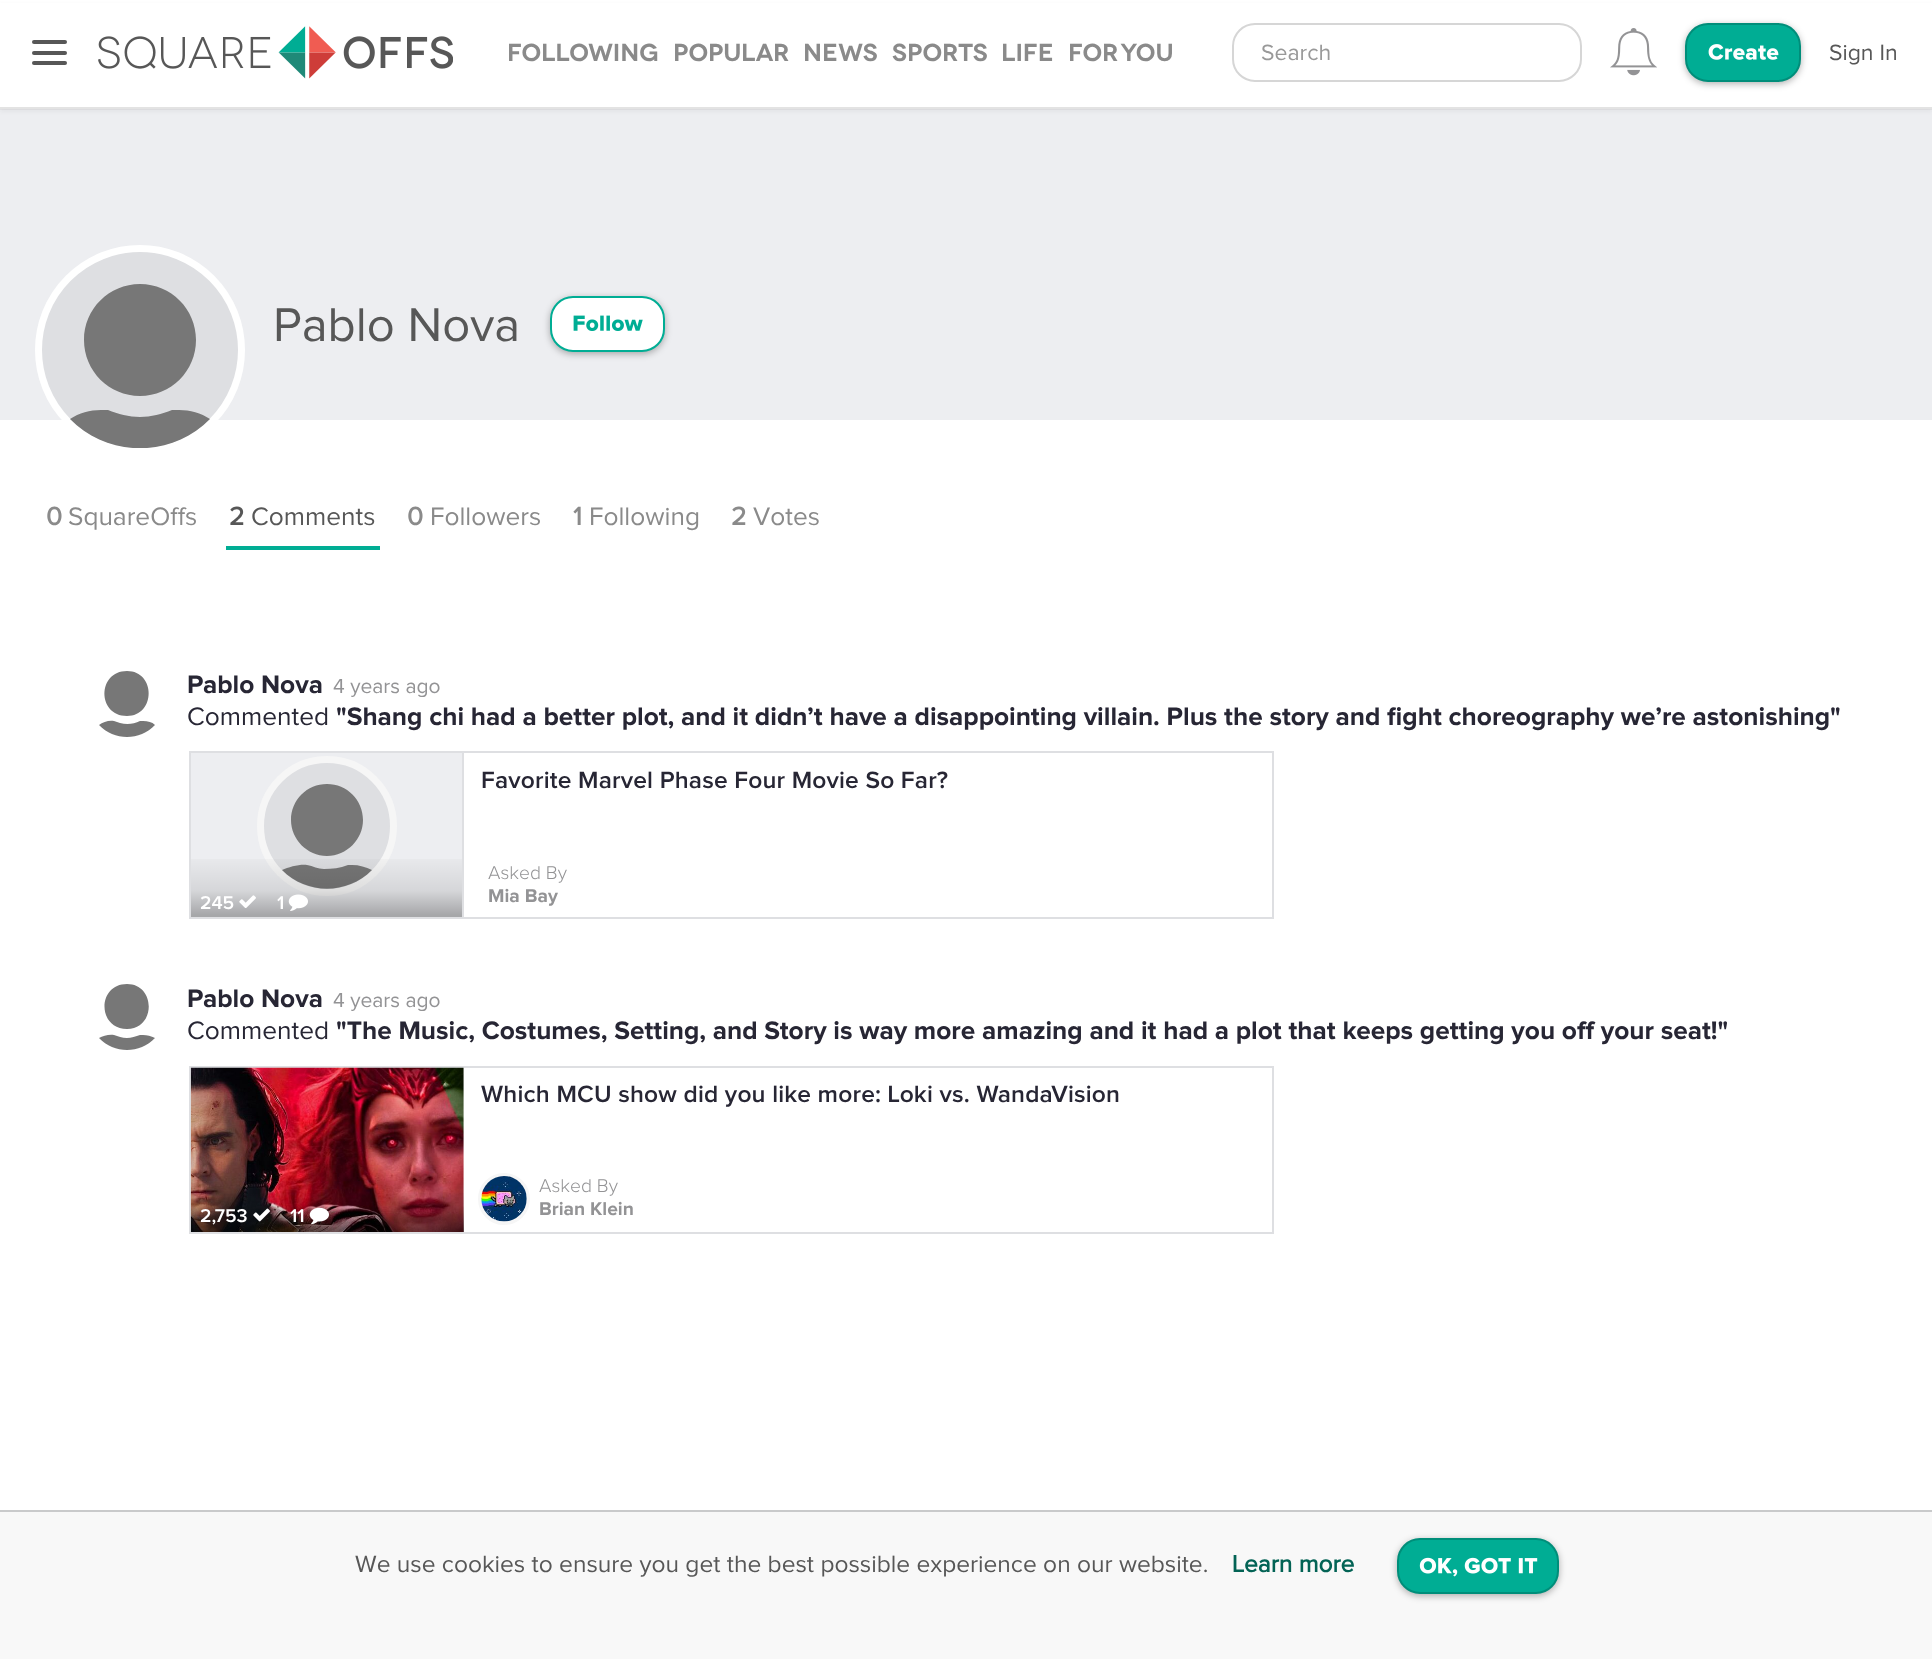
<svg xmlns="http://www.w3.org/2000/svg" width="1932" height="1659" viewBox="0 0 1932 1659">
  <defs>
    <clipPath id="clip1"><rect x="42" y="252" width="196" height="196"/></clipPath>
    <linearGradient id="g1" gradientUnits="userSpaceOnUse" x1="326" y1="753" x2="326" y2="915"><stop offset="0" stop-color="rgb(0,0,0)" stop-opacity="0"/><stop offset="0.6" stop-color="rgb(0,0,0)" stop-opacity="0"/><stop offset="0.85" stop-color="rgb(0,0,0)" stop-opacity="0.1"/><stop offset="1" stop-color="rgb(0,0,0)" stop-opacity="0.3"/></linearGradient>
    <clipPath id="clip2"><rect x="191" y="753" width="271" height="164"/></clipPath>
    <linearGradient id="g2" gradientUnits="userSpaceOnUse" x1="327" y1="1068" x2="327" y2="1230"><stop offset="0" stop-color="rgb(0,0,0)" stop-opacity="0"/><stop offset="0.75" stop-color="rgb(0,0,0)" stop-opacity="0"/><stop offset="0.85" stop-color="rgb(0,0,0)" stop-opacity="0.1"/><stop offset="1" stop-color="rgb(0,0,0)" stop-opacity="0.5"/></linearGradient>
    <clipPath id="clip3"><rect x="191" y="1068" width="273" height="164"/></clipPath>
  </defs>
  <rect width="100%" height="100%" fill="rgb(255,255,255)"/>
  <rect x="0" y="109" width="1932" height="1" fill="rgb(228,228,231)"/>
  <rect x="0" y="110" width="1932" height="310" fill="rgb(237,238,241)"/>
  <rect x="0" y="4" width="1932" height="108" fill="rgba(0,0,0,0.04)" filter="blur(2px)"/>
  <rect x="0" y="3" width="1932" height="104" fill="rgb(255,255,255)"/>
  <rect x="32" y="51" width="35" height="4" rx="2" fill="rgb(87,87,87)"/>
  <rect x="32" y="40" width="35" height="4" rx="2" fill="rgb(87,87,87)"/>
  <rect x="32" y="61" width="35" height="4" rx="2" fill="rgb(87,87,87)"/>
  <rect x="0" y="107" width="1932" height="2" fill="rgb(227,227,227)"/>
  <image x="98" y="26" width="355" height="53" href="pic1.png"/>
  <g font-family="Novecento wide" font-size="24.5" font-weight="600" fill="rgb(138,138,138)">
    <text x="507" y="61">Following</text>
    <text x="673" y="61">Popular</text>
    <text x="803" y="61">News</text>
    <text x="892" y="61">Sports</text>
    <text x="1001" y="61">Life</text>
    <text x="1068" y="61" word-spacing="-4">For you</text>
  </g>
  <rect x="1233" y="24" width="348" height="57" rx="22" fill="none" stroke="rgb(214,214,214)" stroke-width="2"/>
  <text x="1261" y="60" font-family="Proxima Nova" font-size="23" fill="rgb(153,153,153)">Search</text>
  <image x="1610" y="28" width="47" height="48" href="pic2.png"/>
  <rect x="1685" y="25" width="116" height="59" rx="23" fill="rgba(0,0,0,0.3)" filter="blur(3.5px)"/>
  <rect x="1686" y="24" width="114" height="57" rx="22" fill="rgb(0,173,148)" stroke="rgb(0,142,122)" stroke-width="2"/>
  <image x="1708" y="44" width="71" height="16" href="pic3.png"/>
  <text x="1829" y="60" font-family="Proxima Nova" font-size="23" fill="rgb(87,87,87)">Sign In</text>
  <circle cx="140" cy="350" r="101.5" fill="rgb(222,223,226)" stroke="rgb(255,255,255)" stroke-width="7"/>
  <g clip-path="url(#clip1)">
    <path d="M179 410C190 410 201 413 210 419C172 458 108 458 70 419C79 413 90 410 101 410H108C118 414 129 417 140 417C151 417 162 414 172 410ZM140 396C109 396 84 371 84 340C84 309 109 284 140 284C171 284 196 309 196 340C196 371 171 396 140 396Z" fill="rgb(119,119,119)" fill-rule="evenodd"/>
  </g>
  <text x="273" y="341" font-family="Proxima Nova" font-size="49" fill="rgb(87,87,87)">Pablo Nova</text>
  <rect x="550" y="298" width="115" height="56" rx="23" fill="rgba(0,0,0,0.3)" filter="blur(3.5px)"/>
  <rect x="551" y="297" width="113" height="54" rx="22" fill="rgb(255,255,255)" stroke="rgb(0,173,148)" stroke-width="2"/>
  <image x="573" y="315" width="70" height="16" href="pic4.png"/>
  <text x="46" y="525" font-family="'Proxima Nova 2'" font-size="26.25" font-weight="bold" fill="rgb(138,138,138)">0</text>
  <text x="68" y="525" font-family="Proxima Nova" font-size="26.25" fill="rgb(138,138,138)">SquareOffs</text>
  <rect x="226" y="546" width="154" height="4" fill="rgb(0,173,148)"/>
  <text x="229" y="525" font-family="'Proxima Nova 2'" font-size="26.25" font-weight="bold" fill="rgb(87,87,87)">2</text>
  <text x="251" y="525" font-family="Proxima Nova" font-size="26.25" fill="rgb(87,87,87)">Comments</text>
  <text x="407" y="525" font-family="'Proxima Nova 2'" font-size="26.25" font-weight="bold" fill="rgb(138,138,138)">0</text>
  <text x="430" y="525" font-family="Proxima Nova" font-size="26.25" fill="rgb(138,138,138)">Followers</text>
  <text x="573" y="525" font-family="'Proxima Nova 2'" font-size="26.25" font-weight="bold" fill="rgb(138,138,138)">1</text>
  <text x="589" y="525" font-family="Proxima Nova" font-size="26.25" fill="rgb(138,138,138)">Following</text>
  <text x="731" y="525" font-family="'Proxima Nova 2'" font-size="26.25" font-weight="bold" fill="rgb(138,138,138)">2</text>
  <text x="753" y="525" font-family="Proxima Nova" font-size="26.25" fill="rgb(138,138,138)">Votes</text>
  <path d="M143 721C148 721 152 722 155 725C140 741 114 741 99 725C103 722 109 720 114 721L120 723C127 725 134 724 140 721ZM127 716C97 716 97 671 127 671C156 671 156 716 127 716Z" fill="rgb(119,119,119)" fill-rule="evenodd"/>
  <text x="187" y="693" font-family="Proxima Nova" font-size="26.25" font-weight="bold" fill="rgb(39,38,52)">Pablo Nova</text>
  <text x="333" y="693" font-family="Proxima Nova" font-size="21" fill="rgb(147,147,149)">4 years ago</text>
  <text x="187" y="725" font-family="Proxima Nova" font-size="26.25" fill="rgb(39,38,52)">Commented</text>
  <text x="336" y="725" font-family="Proxima Nova" font-size="26.25" font-weight="bold" fill="rgb(39,38,52)">"Shang chi had a better plot, and it didn’t have a disappointing villain. Plus the story and fight choreography we’re astonishing"</text>
  <rect x="190" y="752" width="1083" height="166" fill="none" stroke="rgb(222,223,226)" stroke-width="2"/>
  <text x="481" y="788" font-family="Proxima Nova" font-size="24.5" font-weight="600" letter-spacing="0.18" fill="rgb(39,38,52)">Favorite Marvel Phase Four Movie So Far?</text>
  <rect x="191" y="753" width="271" height="162" fill="rgb(237,238,241)"/>
  <rect x="462" y="753" width="2" height="164" fill="rgb(222,223,226)"/>
  <circle cx="327" cy="826" r="66.5" fill="rgb(222,223,226)" stroke="rgb(246,246,246)" stroke-width="7"/>
  <path d="M352 865C359 865 366 867 372 870C347 895 307 895 282 870C289 867 300 864 307 865C313 866 318 869 324 869C332 869 340 868 348 865ZM327 856C307 856 291 839 291 820C291 800 307 784 327 784C347 784 363 800 363 820C363 839 347 856 327 856Z" fill="rgb(119,119,119)" fill-rule="evenodd"/>
  <rect x="191" y="859" width="271" height="56" fill="url(#g1)"/>
  <g clip-path="url(#clip2)">
    <path d="M464 917H189L191 915H462Z" fill="rgb(166,167,169)"/>
  </g>
  <text x="200" y="909" font-family="Proxima Nova" font-size="19.25" font-weight="600" fill="rgb(255,255,255)">245</text>
  <image x="239" y="895" width="17" height="13" href="pic5.png"/>
  <text x="277" y="909" font-family="Proxima Nova" font-size="19.25" font-weight="600" fill="rgb(255,255,255)">1</text>
  <image x="288" y="894" width="20" height="17" href="pic6.png"/>
  <text x="488" y="879" font-family="Proxima Nova" font-size="19.25" font-weight="300" fill="rgb(147,147,149)">Asked By</text>
  <text x="488" y="902" font-family="Proxima Nova" font-size="19.25" font-weight="bold" fill="rgb(147,147,149)">Mia Bay</text>
  <path d="M143 1035C147 1035 151 1036 155 1038C140 1054 114 1054 99 1038C103 1036 109 1034 114 1035C118 1036 122 1038 127 1038C131 1038 136 1036 140 1035ZM127 1029C97 1029 97 984 127 984C156 984 156 1029 127 1029Z" fill="rgb(119,119,119)" fill-rule="evenodd"/>
  <text x="187" y="1007" font-family="Proxima Nova" font-size="26.25" font-weight="bold" fill="rgb(39,38,52)">Pablo Nova</text>
  <text x="333" y="1007" font-family="Proxima Nova" font-size="21" fill="rgb(147,147,149)">4 years ago</text>
  <text x="187" y="1039" font-family="Proxima Nova" font-size="26.25" fill="rgb(39,38,52)">Commented</text>
  <text x="336" y="1039" font-family="Proxima Nova" font-size="26.25" font-weight="bold" fill="rgb(39,38,52)">"The Music, Costumes, Setting, and Story is way more amazing and it had a plot that keeps getting you off your seat!"</text>
  <rect x="190" y="1067" width="1083" height="166" fill="none" stroke="rgb(222,223,226)" stroke-width="2"/>
  <text x="481" y="1102" font-family="Proxima Nova" font-size="24.5" font-weight="600" letter-spacing="0.18" fill="rgb(39,38,52)">Which MCU show did you like more: Loki vs. WandaVision</text>
  <image x="190" y="1067" width="274" height="165" href="pic7.png"/>
  <rect x="191" y="1193" width="273" height="37" fill="url(#g2)"/>
  <g clip-path="url(#clip3)">
    <path d="M466 1232H189L191 1230H464Z" fill="rgba(0,0,0,0.5)"/>
  </g>
  <text x="200" y="1222" font-family="Proxima Nova" font-size="19.25" font-weight="600" fill="rgb(255,255,255)">2,753</text>
  <image x="253" y="1208" width="17" height="14" href="pic8.png"/>
  <text x="290" y="1222" font-family="Proxima Nova" font-size="19.25" font-weight="600" fill="rgb(255,255,255)">11</text>
  <image x="309" y="1207" width="20" height="18" href="pic9.png"/>
  <circle cx="504" cy="1199" r="24" fill="none" stroke="rgb(246,246,246)" stroke-width="4"/>
  <image x="481" y="1176" width="46" height="46" href="pic10.png"/>
  <text x="539" y="1192" font-family="Proxima Nova" font-size="19.25" font-weight="300" fill="rgb(147,147,149)">Asked By</text>
  <text x="539" y="1215" font-family="Proxima Nova" font-size="19.25" font-weight="bold" fill="rgb(147,147,149)">Brian Klein</text>
  <rect x="0" y="1512" width="1932" height="147" fill="rgb(248,248,248)"/>
  <rect x="0" y="1510" width="1932" height="2" fill="rgb(201,202,203)"/>
  <text x="355" y="1572" font-family="Proxima Nova" font-size="24.5" fill="rgb(87,87,87)">We use cookies to ensure you get the best possible experience on our website.</text>
  <text x="1232" y="1572" font-family="'Proxima Nova 2'" font-size="24.5" font-weight="bold" fill="rgb(3,99,85)">Learn more</text>
  <rect x="1397" y="1540" width="162" height="56" rx="23" fill="rgba(0,0,0,0.3)" filter="blur(3.5px)"/>
  <rect x="1398" y="1539" width="160" height="54" rx="22" fill="rgb(0,173,148)" stroke="rgb(0,142,122)" stroke-width="2"/>
  <image x="1419" y="1557" width="119" height="20" href="pic11.png"/>
</svg>
